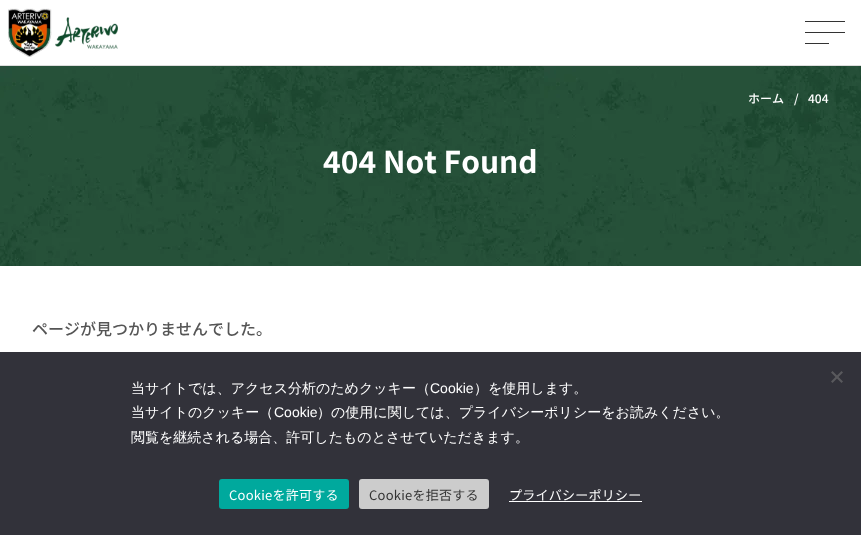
<svg xmlns="http://www.w3.org/2000/svg" width="861" height="535" viewBox="0 0 861 535">
  <style>*{font-kerning:none!important;font-variant-ligatures:none!important}</style>
  <rect width="100%" height="100%" fill="rgb(255,255,255)"/>
  <image x="8" y="8" width="110" height="49" href="pic1.png"/>
  <rect x="805" y="21" width="40" height="1" fill="rgb(51,51,51)"/>
  <rect x="805" y="32" width="40" height="1" fill="rgb(51,51,51)"/>
  <rect x="805" y="43" width="24" height="1" fill="rgb(51,51,51)"/>
  <rect x="0" y="65" width="861" height="1" fill="rgb(221,221,221)"/>
  <image x="0" y="66" width="861" height="200" href="pic2.png"/>
  <g font-family="Noto Sans JP" font-size="12" font-weight="500" fill="rgb(255,255,255)">
    <text x="748" y="103">ホーム</text>
    <text x="794" y="103">/</text>
    <text x="808" y="103">404</text>
  </g>
  <text x="323" y="173" font-family="Noto Sans JP" font-size="30" font-weight="bold" fill="rgb(255,255,255)">404 Not Found</text>
  <text x="32" y="335" font-family="Noto Sans JP" font-size="16" font-weight="500" fill="rgb(85,85,85)">ページが見つかりませんでした。</text>
  <rect x="0" y="352" width="861" height="183" fill="rgb(50,50,58)"/>
  <path d="M841.5 371L843 372.5L832.5 383L831 381.5Z" fill="rgb(89,89,93)"/>
  <path d="M831 372.5L832.5 371L843 381.5L841.5 383Z" fill="rgb(89,89,93)"/>
  <text x="131" y="393" font-family="WenQuanYi Zen Hei" font-size="14" font-weight="500" fill="rgb(255,255,255)">当サイトでは、アクセス分析のためクッキー（</text>
  <text x="430" y="393" font-family="Liberation Sans" font-size="14" fill="rgb(255,255,255)">Cookie</text>
  <g font-family="WenQuanYi Zen Hei" font-size="14" font-weight="500" fill="rgb(255,255,255)">
    <text x="474" y="393">）を使用します。</text>
    <text x="131" y="417">当サイトのクッキー（</text>
  </g>
  <text x="274" y="417" font-family="Liberation Sans" font-size="14" fill="rgb(255,255,255)">Cookie</text>
  <g font-family="WenQuanYi Zen Hei" font-size="14" font-weight="500" fill="rgb(255,255,255)">
    <text x="317" y="417">）の使用に関しては、プライバシーポリシーをお読みください。</text>
    <text x="131" y="442">閲覧を継続される場合、許可したものとさせていただきます。</text>
  </g>
  <rect x="219" y="479" width="130" height="30" rx="3" fill="rgb(0,169,157)"/>
  <text x="229" y="500" font-family="Noto Sans JP" font-size="13" letter-spacing="0.25" fill="rgb(255,255,255)">Cookieを許可する</text>
  <rect x="359" y="479" width="130" height="30" rx="3" fill="rgb(204,204,204)"/>
  <text x="369" y="500" font-family="Noto Sans JP" font-size="13" letter-spacing="0.25" fill="rgb(51,51,51)">Cookieを拒否する</text>
  <text x="509" y="500" font-family="Noto Sans JP" font-size="13" letter-spacing="0.25" fill="rgb(255,255,255)">プライバシーポリシー</text>
  <rect x="509" y="501" width="133" height="1" fill="rgb(255,255,255)"/>
</svg>
